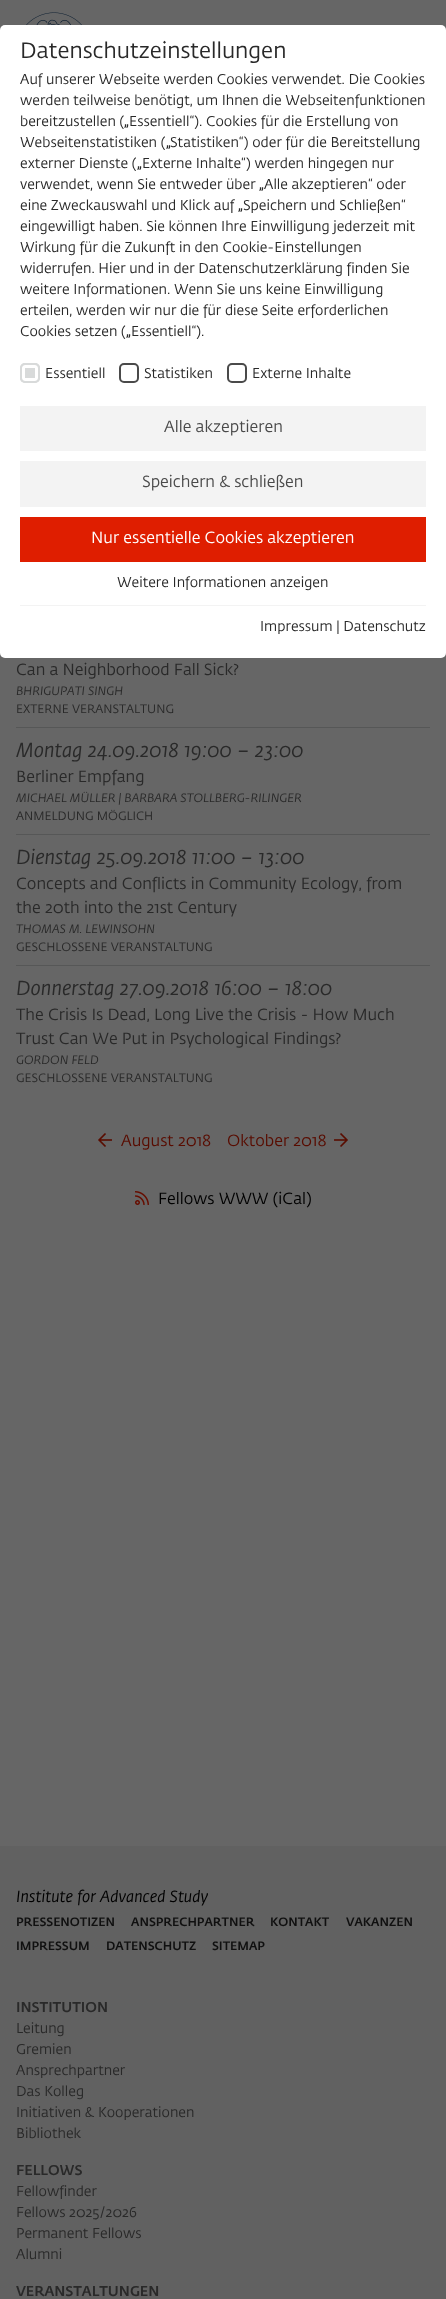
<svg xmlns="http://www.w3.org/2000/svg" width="446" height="2299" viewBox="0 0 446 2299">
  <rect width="100%" height="100%" fill="rgb(102,102,102)"/>
  <rect x="0" y="25" width="446" height="633" rx="5" fill="rgb(255,255,255)"/>
  <text x="20" y="58" font-family="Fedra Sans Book" font-size="22" fill="rgb(41,41,41)">Datenschutzeinstellungen</text>
  <g font-family="Fedra Sans Book" font-size="14" fill="rgb(41,41,41)">
    <text>
      <tspan x="20" y="84">Auf unserer Webseite werden Cookies verwendet. Die Cookies</tspan>
      <tspan x="20" y="105">werden teilweise benötigt, um Ihnen die Webseitenfunktionen</tspan>
      <tspan x="20" y="126">bereitzustellen (</tspan>
    </text>
  </g>
  <text x="124" y="126" font-family="Roboto" font-size="14" fill="rgb(41,41,41)">„</text>
  <g font-family="Fedra Sans Book" font-size="14" fill="rgb(41,41,41)">
    <text x="129" y="126">Essentiell“). Cookies für die Erstellung von</text>
    <text x="20" y="147">Webseitenstatistiken (</text>
  </g>
  <text x="166" y="147" font-family="Roboto" font-size="14" fill="rgb(41,41,41)">„</text>
  <g font-family="Fedra Sans Book" font-size="14" fill="rgb(41,41,41)">
    <text x="170" y="147">Statistiken“) oder für die Bereitstellung</text>
    <text x="20" y="168">externer Dienste (</text>
  </g>
  <text x="137" y="168" font-family="Roboto" font-size="14" fill="rgb(41,41,41)">„</text>
  <g font-family="Fedra Sans Book" font-size="14" fill="rgb(41,41,41)">
    <text x="142" y="168">Externe Inhalte“) werden hingegen nur</text>
    <text x="20" y="189">verwendet, wenn Sie entweder über</text>
  </g>
  <text x="259" y="189" font-family="Roboto" font-size="14" fill="rgb(41,41,41)">„</text>
  <g font-family="Fedra Sans Book" font-size="14" fill="rgb(41,41,41)">
    <text x="264" y="189">Alle akzeptieren“ oder</text>
    <text x="20" y="210">eine Zweckauswahl und Klick auf</text>
  </g>
  <text x="238" y="210" font-family="Roboto" font-size="14" fill="rgb(41,41,41)">„</text>
  <g font-family="Fedra Sans Book" font-size="14" fill="rgb(41,41,41)">
    <text x="243" y="210">Speichern und Schließen“</text>
    <text>
      <tspan x="20" y="231">eingewilligt haben. Sie können Ihre Einwilligung jederzeit mit</tspan>
      <tspan x="20" y="252">Wirkung für die Zukunft in den Cookie-Einstellungen</tspan>
      <tspan x="20" y="273">widerrufen. Hier und in der Datenschutzerklärung finden Sie</tspan>
      <tspan x="20" y="294">weitere Informationen. Wenn Sie uns keine Einwilligung</tspan>
      <tspan x="20" y="315">erteilen, werden wir nur die für diese Seite erforderlichen</tspan>
      <tspan x="20" y="336">Cookies setzen (</tspan>
    </text>
  </g>
  <text x="126" y="336" font-family="Roboto" font-size="14" fill="rgb(41,41,41)">„</text>
  <text x="131" y="336" font-family="Fedra Sans Book" font-size="14" fill="rgb(41,41,41)">Essentiell“).</text>
  <rect x="20" y="363" width="20" height="20" rx="5" fill="rgb(216,218,218)"/>
  <rect x="23.5" y="366.5" width="13" height="13" rx="1.5" fill="none" stroke="rgb(255,255,255)" stroke-width="3"/>
  <rect x="21" y="364" width="18" height="18" rx="4" fill="none" stroke="rgb(216,218,218)" stroke-width="2"/>
  <text x="45" y="378" font-family="Fedra Sans Book" font-size="14" fill="rgb(41,41,41)">Essentiell</text>
  <rect x="120" y="364" width="18" height="18" rx="4" fill="none" stroke="rgb(74,74,74)" stroke-width="2"/>
  <text x="144" y="378" font-family="Fedra Sans Book" font-size="14" fill="rgb(41,41,41)">Statistiken</text>
  <rect x="228" y="364" width="18" height="18" rx="4" fill="none" stroke="rgb(74,74,74)" stroke-width="2"/>
  <text x="252" y="378" font-family="Fedra Sans Book" font-size="14" fill="rgb(41,41,41)">Externe Inhalte</text>
  <rect x="20" y="406" width="406" height="45" fill="rgb(243,243,243)"/>
  <text x="164" y="432" font-family="Fedra Sans Book" font-size="16" fill="rgb(74,74,74)">Alle akzeptieren</text>
  <rect x="20" y="461" width="406" height="46" fill="rgb(243,243,243)"/>
  <text x="142" y="487" font-family="Fedra Sans Book" font-size="16" fill="rgb(74,74,74)">Speichern &amp; schließen</text>
  <rect x="20" y="517" width="406" height="45" fill="rgb(223,30,0)"/>
  <text x="91" y="543" font-family="Fedra Sans Book" font-size="16" fill="rgb(255,255,255)">Nur essentielle Cookies akzeptieren</text>
  <text x="117" y="587" font-family="Fedra Sans Book" font-size="14" fill="rgb(41,41,41)">Weitere Informationen anzeigen</text>
  <rect x="20" y="605" width="406" height="1" fill="rgb(243,243,243)"/>
  <text x="260" y="631" font-family="Fedra Sans Book" font-size="14" fill="rgb(41,41,41)">Impressum | Datenschutz</text>
  <image x="26" y="12" width="56" height="13" href="pic1.png"/>
  <text x="16" y="675" font-family="Fedra Sans Book" font-size="16" fill="rgb(41,41,41)">Can a Neighborhood Fall Sick?</text>
  <text x="16" y="695" font-family="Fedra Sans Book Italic" font-size="12" font-style="italic" fill="rgb(41,41,41)">BHRIGUPATI SINGH</text>
  <text x="16" y="713" font-family="Fedra Sans Book" font-size="12" fill="rgb(41,41,41)">EXTERNE VERANSTALTUNG</text>
  <rect x="16" y="727" width="414" height="1" fill="rgb(86,87,87)"/>
  <text x="16" y="757" font-family="Fedra Sans Book Italic" font-size="20" font-style="italic" fill="rgb(41,41,41)">Montag 24.09.2018 19:00 – 23:00</text>
  <text x="16" y="782" font-family="Fedra Sans Book" font-size="16" fill="rgb(41,41,41)">Berliner Empfang</text>
  <text x="16" y="802" font-family="Fedra Sans Book Italic" font-size="12" font-style="italic" fill="rgb(41,41,41)">MICHAEL MÜLLER | BARBARA STOLLBERG-RILINGER</text>
  <text x="16" y="820" font-family="Fedra Sans Book" font-size="12" fill="rgb(41,41,41)">ANMELDUNG MÖGLICH</text>
  <rect x="16" y="834" width="414" height="1" fill="rgb(86,87,87)"/>
  <text x="16" y="864" font-family="Fedra Sans Book Italic" font-size="20" font-style="italic" fill="rgb(41,41,41)">Dienstag 25.09.2018 11:00 – 13:00</text>
  <g font-family="Fedra Sans Book" font-size="16" fill="rgb(41,41,41)">
    <text>
      <tspan x="16" y="889">Concepts and Conflicts in Community Ecology, from</tspan>
      <tspan x="16" y="913">the 20th into the 21st Century</tspan>
    </text>
  </g>
  <text x="16" y="933" font-family="Fedra Sans Book Italic" font-size="12" font-style="italic" fill="rgb(41,41,41)">THOMAS M. LEWINSOHN</text>
  <text x="16" y="951" font-family="Fedra Sans Book" font-size="12" fill="rgb(41,41,41)">GESCHLOSSENE VERANSTALTUNG</text>
  <rect x="16" y="965" width="414" height="1" fill="rgb(86,87,87)"/>
  <text x="16" y="995" font-family="Fedra Sans Book Italic" font-size="20" font-style="italic" fill="rgb(41,41,41)">Donnerstag 27.09.2018 16:00 – 18:00</text>
  <g font-family="Fedra Sans Book" font-size="16" fill="rgb(41,41,41)">
    <text>
      <tspan x="16" y="1020">The Crisis Is Dead, Long Live the Crisis - How Much</tspan>
      <tspan x="16" y="1044">Trust Can We Put in Psychological Findings?</tspan>
    </text>
  </g>
  <text x="16" y="1064" font-family="Fedra Sans Book Italic" font-size="12" font-style="italic" fill="rgb(41,41,41)">GORDON FELD</text>
  <text x="16" y="1082" font-family="Fedra Sans Book" font-size="12" fill="rgb(41,41,41)">GESCHLOSSENE VERANSTALTUNG</text>
  <image x="98" y="1133" width="14" height="14" href="pic2.png"/>
  <g font-family="Fedra Sans Book" font-size="16" fill="rgb(89,12,0)">
    <text x="121" y="1146">August 2018</text>
    <text x="227" y="1146">Oktober 2018</text>
  </g>
  <image x="334" y="1133" width="14" height="14" href="pic3.png"/>
  <image x="135" y="1191" width="14" height="14" href="pic4.png"/>
  <text x="158" y="1204" font-family="Fedra Sans Book" font-size="16" fill="rgb(0,0,0)">Fellows WWW (iCal)</text>
  <rect x="0" y="1846" width="446" height="453" fill="rgb(97,97,97)"/>
  <text x="16" y="1902" font-family="Fedra Sans Book Italic" font-size="16" font-style="italic" fill="rgb(0,0,0)">Institute for Advanced Study</text>
  <g font-family="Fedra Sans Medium" font-size="12" font-weight="500" fill="rgb(16,16,16)">
    <text x="16" y="1926">PRESSENOTIZEN</text>
    <text x="131" y="1926">ANSPRECHPARTNER</text>
    <text x="270" y="1926">KONTAKT</text>
    <text x="346" y="1926">VAKANZEN</text>
    <text x="16" y="1950">IMPRESSUM</text>
    <text x="106" y="1950">DATENSCHUTZ</text>
    <text x="212" y="1950">SITEMAP</text>
  </g>
  <text x="16" y="2012" font-family="Fedra Sans Medium" font-size="14" font-weight="500" fill="rgb(41,41,41)">INSTITUTION</text>
  <g font-family="Fedra Sans Book" font-size="14" fill="rgb(41,41,41)">
    <text>
      <tspan x="16" y="2033">Leitung</tspan>
      <tspan x="16" y="2054">Gremien</tspan>
      <tspan x="16" y="2075">Ansprechpartner</tspan>
      <tspan x="16" y="2096">Das Kolleg</tspan>
      <tspan x="16" y="2117">Initiativen &amp; Kooperationen</tspan>
      <tspan x="16" y="2138">Bibliothek</tspan>
    </text>
  </g>
  <text x="16" y="2175" font-family="Fedra Sans Medium" font-size="14" font-weight="500" fill="rgb(41,41,41)">FELLOWS</text>
  <g font-family="Fedra Sans Book" font-size="14" fill="rgb(41,41,41)">
    <text>
      <tspan x="16" y="2196">Fellowfinder</tspan>
      <tspan x="16" y="2217">Fellows 2025/2026</tspan>
      <tspan x="16" y="2238">Permanent Fellows</tspan>
      <tspan x="16" y="2259">Alumni</tspan>
    </text>
  </g>
  <text x="16" y="2296" font-family="Fedra Sans Medium" font-size="14" font-weight="500" fill="rgb(41,41,41)">VERANSTALTUNGEN</text>
</svg>
